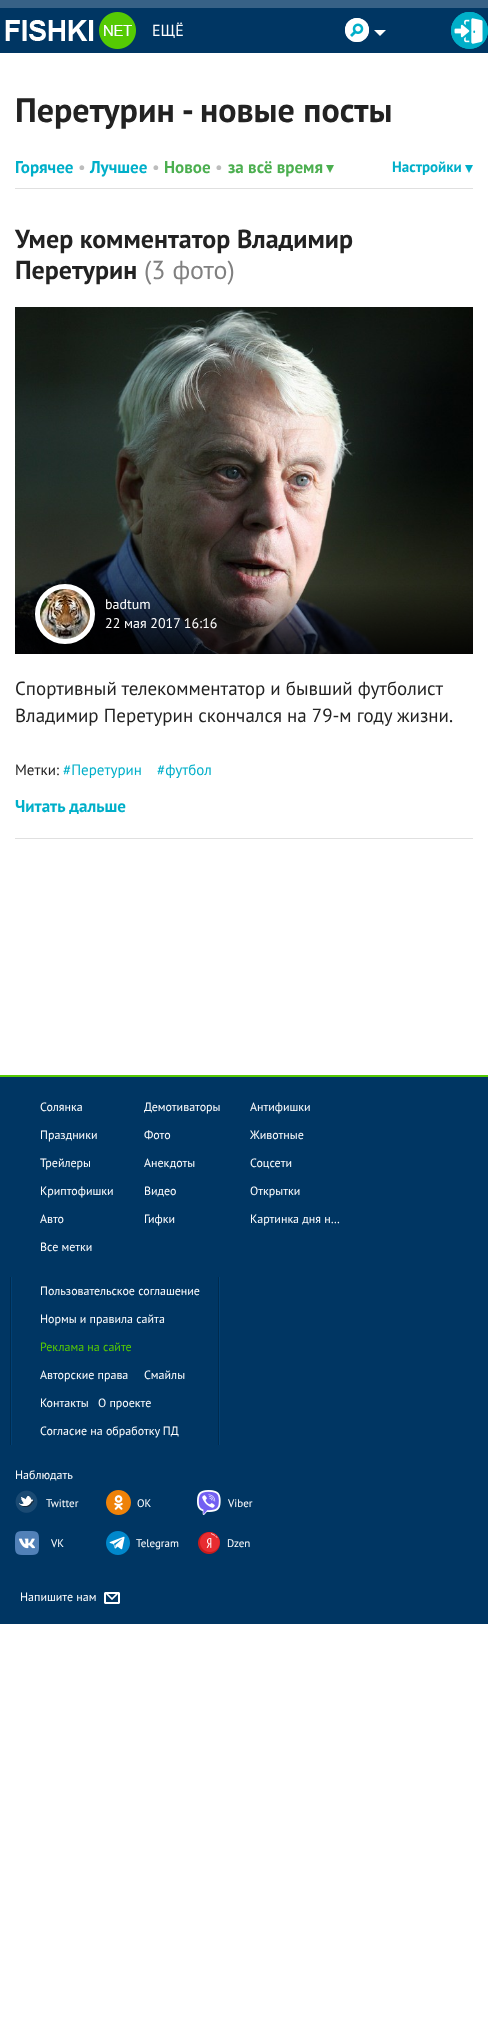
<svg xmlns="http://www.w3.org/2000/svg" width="488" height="2043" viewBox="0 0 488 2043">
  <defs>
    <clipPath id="clip1"><rect x="144" y="1093" width="76" height="28"/></clipPath>
  </defs>
  <rect width="100%" height="100%" fill="rgb(255,255,255)"/>
  <rect x="0" y="8" width="488" height="45" fill="rgb(0,54,99)"/>
  <rect x="0" y="0" width="488" height="8" fill="rgb(55,97,134)"/>
  <image x="5" y="12" width="131" height="37" href="pic1.png"/>
  <text x="152" y="36" font-family="PT Sans" font-size="16" fill="rgb(255,255,255)">ЕЩЁ</text>
  <circle cx="357" cy="30" r="12" fill="rgb(255,255,255)"/>
  <image x="350" y="23" width="14" height="14" href="pic2.png"/>
  <circle cx="357" cy="30" r="11" fill="none" stroke="rgb(255,255,255)" stroke-width="2"/>
  <path d="M374 30H386L380 36Z" fill="rgb(255,255,255)"/>
  <circle cx="469.5" cy="30.5" r="18.5" fill="rgb(0,175,201)"/>
  <image x="454" y="18" width="31" height="26" href="pic3.png"/>
  <circle cx="469.5" cy="30.5" r="17.5" fill="none" stroke="rgb(0,175,201)" stroke-width="2"/>
  <text x="15" y="122" font-family="PT Sans" font-size="34" font-weight="bold" fill="rgb(34,34,34)">Перетурин - новые посты</text>
  <rect x="15" y="188" width="458" height="1" fill="rgb(224,224,224)"/>
  <text x="15" y="173" font-family="PT Sans" font-size="17" font-weight="bold" fill="rgb(0,175,201)">Горячее</text>
  <text x="78" y="173" font-family="PT Sans" font-size="17" fill="rgb(189,189,189)">•</text>
  <text x="90" y="173" font-family="PT Sans" font-size="17" font-weight="bold" fill="rgb(0,175,201)">Лучшее</text>
  <text x="152" y="173" font-family="PT Sans" font-size="17" fill="rgb(189,189,189)">•</text>
  <text x="164" y="173" font-family="PT Sans" font-size="17" font-weight="bold" fill="rgb(76,175,80)">Новое</text>
  <text x="215" y="173" font-family="PT Sans" font-size="17" fill="rgb(189,189,189)">•</text>
  <text x="228" y="173" font-family="PT Sans" font-size="17" font-weight="bold" fill="rgb(76,175,80)">за всё время</text>
  <path d="M326 165H334L330 173Z" fill="rgb(76,175,80)"/>
  <text x="392" y="172" font-family="PT Sans" font-size="15" font-weight="bold" fill="rgb(0,175,201)">Настройки</text>
  <path d="M465 165H473L469 173Z" fill="rgb(0,175,201)"/>
  <rect x="15" y="838" width="458" height="1" fill="rgb(224,224,224)"/>
  <g font-family="PT Sans" font-size="26" font-weight="bold" fill="rgb(34,34,34)">
    <text>
      <tspan x="15" y="248">Умер комментатор Владимир</tspan>
      <tspan x="15" y="279">Перетурин</tspan>
    </text>
  </g>
  <text x="144" y="279" font-family="PT Sans" font-size="26" fill="rgb(128,128,128)">(3 фото)</text>
  <image x="15" y="307" width="458" height="347" href="pic4.png"/>
  <image x="40" y="589" width="50" height="50" href="pic5.png"/>
  <circle cx="65" cy="614" r="27.5" fill="none" stroke="rgb(255,255,255)" stroke-width="5"/>
  <g font-family="PT Sans" font-size="14" fill="rgb(255,255,255)">
    <text>
      <tspan x="105" y="609">badtum</tspan>
      <tspan x="105" y="628">22 мая 2017 16:16</tspan>
    </text>
  </g>
  <g font-family="PT Sans" font-size="19" fill="rgb(34,34,34)">
    <text>
      <tspan x="15" y="695">Спортивный телекомментатор и бывший футболист</tspan>
      <tspan x="15" y="722">Владимир Перетурин скончался на 79-м году жизни.</tspan>
    </text>
  </g>
  <text x="15" y="775" font-family="PT Sans" font-size="15" fill="rgb(34,34,34)">Метки:</text>
  <g font-family="PT Sans" font-size="15" fill="rgb(0,175,201)">
    <text x="63" y="775">#Перетурин</text>
    <text x="157" y="775">#футбол</text>
  </g>
  <text x="15" y="812" font-family="PT Sans" font-size="17" font-weight="bold" fill="rgb(0,175,201)">Читать дальше</text>
  <rect x="0" y="1077" width="488" height="547" fill="rgb(0,54,99)"/>
  <rect x="0" y="1075" width="488" height="2" fill="rgb(85,202,3)"/>
  <g font-family="PT Sans" font-size="12" fill="rgb(255,255,255)">
    <text x="40" y="1111">Солянка</text>
    <text x="40" y="1139">Праздники</text>
    <text x="40" y="1167">Трейлеры</text>
    <text x="40" y="1195">Криптофишки</text>
    <text x="40" y="1223">Авто</text>
    <text x="40" y="1251">Все метки</text>
  </g>
  <g clip-path="url(#clip1)">
    <text x="144" y="1111" font-family="PT Sans" font-size="12" fill="rgb(255,255,255)">Демотиваторы</text>
  </g>
  <g font-family="PT Sans" font-size="12" fill="rgb(255,255,255)">
    <text x="144" y="1139">Фото</text>
    <text x="144" y="1167">Анекдоты</text>
    <text x="144" y="1195">Видео</text>
    <text x="144" y="1223">Гифки</text>
    <text x="250" y="1111">Антифишки</text>
    <text x="250" y="1139">Животные</text>
    <text x="250" y="1167">Соцсети</text>
    <text x="250" y="1195">Открытки</text>
    <text x="250" y="1223">Картинка дня н…</text>
  </g>
  <rect x="11" y="1277" width="1" height="168" fill="rgb(1,64,116)"/>
  <rect x="10" y="1277" width="1" height="168" fill="rgb(0,43,78)"/>
  <g font-family="PT Sans" font-size="12" fill="rgb(255,255,255)">
    <text x="40" y="1295">Пользовательское соглашение</text>
    <text x="40" y="1323">Нормы и правила сайта</text>
  </g>
  <text x="40" y="1351" font-family="PT Sans" font-size="12" fill="rgb(85,202,3)">Реклама на сайте</text>
  <g font-family="PT Sans" font-size="12" fill="rgb(255,255,255)">
    <text x="40" y="1379">Авторские права</text>
    <text x="144" y="1379">Смайлы</text>
    <text x="40" y="1407">Контакты</text>
    <text x="98" y="1407">О проекте</text>
    <text x="40" y="1435">Согласие на обработку ПД</text>
  </g>
  <rect x="219" y="1277" width="1" height="168" fill="rgb(1,64,116)"/>
  <rect x="218" y="1277" width="1" height="168" fill="rgb(0,43,78)"/>
  <text x="15" y="1479" font-family="PT Sans" font-size="12" fill="rgb(255,255,255)">Наблюдать</text>
  <image x="15" y="1490" width="23" height="23" href="pic6.png"/>
  <text x="46" y="1507" font-family="PT Sans" font-size="11" fill="rgb(255,255,255)">Twitter</text>
  <image x="106" y="1490" width="25" height="25" href="pic7.png"/>
  <text x="137" y="1507" font-family="PT Sans" font-size="11" fill="rgb(255,255,255)">OK</text>
  <image x="197" y="1490" width="24" height="25" href="pic8.png"/>
  <text x="228" y="1507" font-family="PT Sans" font-size="11" fill="rgb(255,255,255)">Viber</text>
  <image x="15" y="1531" width="24" height="24" href="pic9.png"/>
  <text x="51" y="1547" font-family="PT Sans" font-size="11" fill="rgb(255,255,255)">VK</text>
  <image x="106" y="1531" width="24" height="24" href="pic10.png"/>
  <text x="136" y="1547" font-family="PT Sans" font-size="11" fill="rgb(255,255,255)">Telegram</text>
  <image x="198" y="1532" width="22" height="22" href="pic11.png"/>
  <text x="227" y="1547" font-family="PT Sans" font-size="11" fill="rgb(255,255,255)">Dzen</text>
  <text x="20" y="1601" font-family="PT Sans" font-size="12" fill="rgb(255,255,255)">Напишите нам</text>
  <image x="104" y="1592" width="16" height="12" href="pic12.png"/>
</svg>
